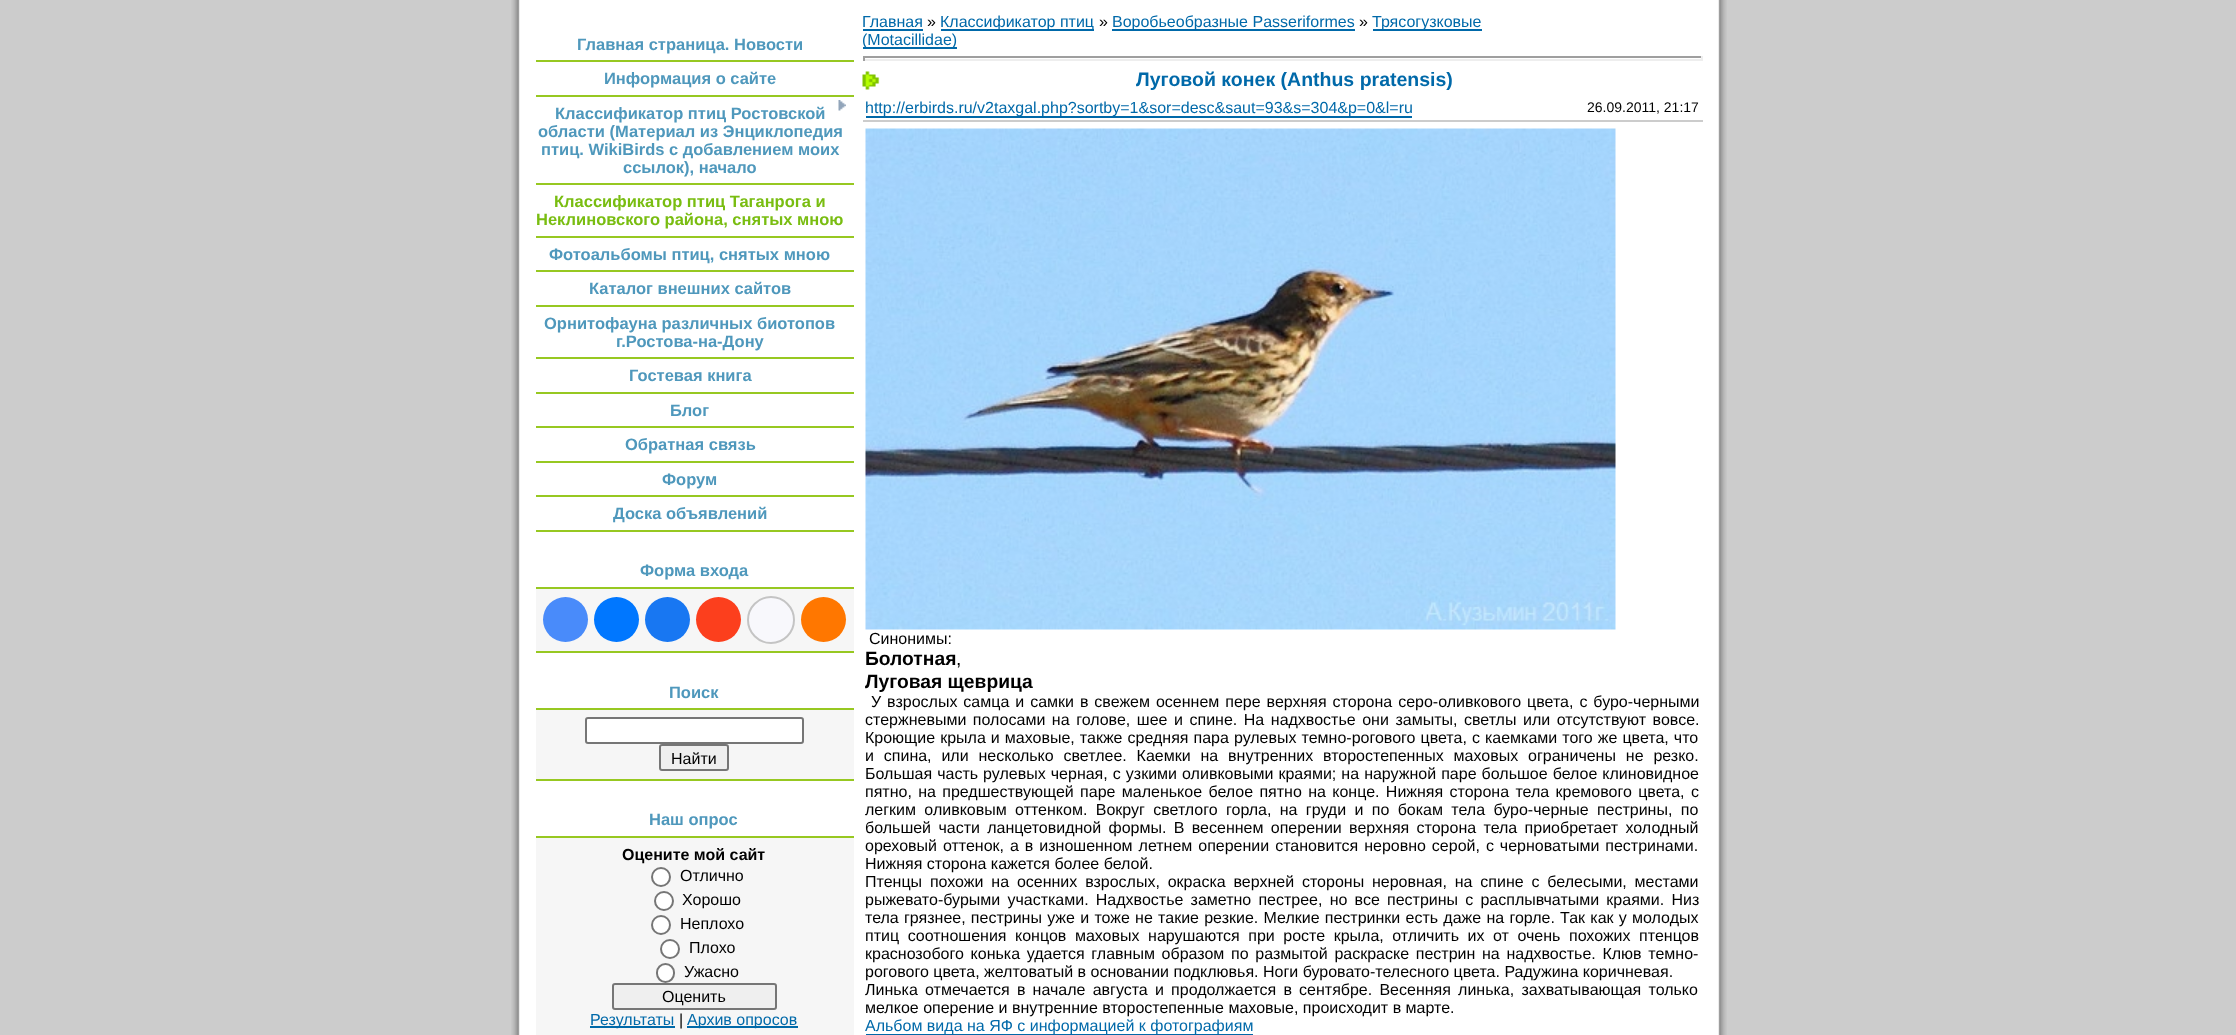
<svg xmlns="http://www.w3.org/2000/svg" width="2236" height="1035" viewBox="0 0 2236 1035">
  <rect width="100%" height="100%" fill="rgb(204,204,204)"/>
  <image x="511" y="0" width="1216" height="1035" href="pic1.png"/>
  <rect x="536" y="60" width="318" height="2" fill="rgb(151,200,33)"/>
  <text x="577" y="50" font-family="Liberation Sans" font-size="16.5" font-weight="bold" fill="rgb(79,152,188)">Главная страница. Новости</text>
  <rect x="536" y="95" width="318" height="2" fill="rgb(151,200,33)"/>
  <text x="604" y="84" font-family="Liberation Sans" font-size="16.5" font-weight="bold" fill="rgb(79,152,188)">Информация о сайте</text>
  <rect x="536" y="183" width="318" height="2" fill="rgb(151,200,33)"/>
  <text x="555" y="119" font-family="Liberation Sans" font-size="16.5" font-weight="bold" fill="rgb(79,152,188)">Классификатор птиц Ростовской</text>
  <image x="838" y="100" width="8" height="11" href="pic2.png"/>
  <g font-family="Liberation Sans" font-size="16.5" font-weight="bold" fill="rgb(79,152,188)">
    <text x="538" y="137">области (Материал из Энциклопедия</text>
    <text x="541" y="155">птиц. WikiBirds с добавлением моих</text>
    <text x="623" y="173">ссылок), начало</text>
  </g>
  <rect x="536" y="236" width="318" height="2" fill="rgb(151,200,33)"/>
  <g font-family="Liberation Sans" font-size="16.5" font-weight="bold" fill="rgb(121,189,17)">
    <text x="554" y="207">Классификатор птиц Таганрога и</text>
    <text x="536" y="225">Неклиновского района, снятых мною</text>
  </g>
  <rect x="536" y="270" width="318" height="2" fill="rgb(151,200,33)"/>
  <text x="549" y="260" font-family="Liberation Sans" font-size="16.5" font-weight="bold" fill="rgb(79,152,188)">Фотоальбомы птиц, снятых мною</text>
  <rect x="536" y="305" width="318" height="2" fill="rgb(151,200,33)"/>
  <text x="589" y="294" font-family="Liberation Sans" font-size="16.5" font-weight="bold" fill="rgb(79,152,188)">Каталог внешних сайтов</text>
  <rect x="536" y="357" width="318" height="2" fill="rgb(151,200,33)"/>
  <g font-family="Liberation Sans" font-size="16.5" font-weight="bold" fill="rgb(79,152,188)">
    <text x="544" y="329">Орнитофауна различных биотопов</text>
    <text x="616" y="347">г.Ростова-на-Дону</text>
  </g>
  <rect x="536" y="392" width="318" height="2" fill="rgb(151,200,33)"/>
  <text x="629" y="381" font-family="Liberation Sans" font-size="16.5" font-weight="bold" fill="rgb(79,152,188)">Гостевая книга</text>
  <rect x="536" y="426" width="318" height="2" fill="rgb(151,200,33)"/>
  <text x="670" y="416" font-family="Liberation Sans" font-size="16.5" font-weight="bold" fill="rgb(79,152,188)">Блог</text>
  <rect x="536" y="461" width="318" height="2" fill="rgb(151,200,33)"/>
  <text x="625" y="450" font-family="Liberation Sans" font-size="16.5" font-weight="bold" fill="rgb(79,152,188)">Обратная связь</text>
  <rect x="536" y="495" width="318" height="2" fill="rgb(151,200,33)"/>
  <text x="662" y="485" font-family="Liberation Sans" font-size="16.5" font-weight="bold" fill="rgb(79,152,188)">Форум</text>
  <rect x="536" y="530" width="318" height="2" fill="rgb(151,200,33)"/>
  <g font-family="Liberation Sans" font-size="16.5" font-weight="bold" fill="rgb(79,152,188)">
    <text x="613" y="519">Доска объявлений</text>
    <text x="640" y="576">Форма входа</text>
  </g>
  <rect x="536" y="589" width="318" height="62" fill="rgb(246,246,246)"/>
  <rect x="536" y="587" width="318" height="2" fill="rgb(151,200,33)"/>
  <rect x="536" y="651" width="318" height="2" fill="rgb(151,200,33)"/>
  <circle cx="565.5" cy="619.5" r="22.5" fill="rgb(73,139,250)"/>
  <circle cx="616.5" cy="619.5" r="22.5" fill="rgb(0,119,255)"/>
  <circle cx="667.5" cy="619.5" r="22.5" fill="rgb(24,119,242)"/>
  <circle cx="718.5" cy="619.5" r="22.5" fill="rgb(252,63,29)"/>
  <circle cx="771" cy="620" r="23" fill="rgb(248,248,252)" stroke="rgb(196,196,196)" stroke-width="2"/>
  <circle cx="823.5" cy="619.5" r="22.5" fill="rgb(255,119,0)"/>
  <text x="669" y="698" font-family="Liberation Sans" font-size="16.5" font-weight="bold" fill="rgb(79,152,188)">Поиск</text>
  <rect x="536" y="710" width="318" height="69" fill="rgb(246,246,246)"/>
  <rect x="536" y="708" width="318" height="2" fill="rgb(151,200,33)"/>
  <rect x="536" y="779" width="318" height="2" fill="rgb(151,200,33)"/>
  <rect x="586" y="718" width="217" height="25" rx="2" fill="rgb(255,255,255)" stroke="rgb(118,118,118)" stroke-width="2"/>
  <rect x="660" y="745" width="68" height="25" rx="2" fill="rgb(239,239,239)" stroke="rgb(118,118,118)" stroke-width="2"/>
  <text x="671" y="764" font-family="Liberation Sans" font-size="16" fill="rgb(0,0,0)">Найти</text>
  <text x="649" y="825" font-family="Liberation Sans" font-size="16.5" font-weight="bold" fill="rgb(79,152,188)">Наш опрос</text>
  <rect x="536" y="838" width="318" height="197" fill="rgb(246,246,246)"/>
  <rect x="536" y="836" width="318" height="2" fill="rgb(151,200,33)"/>
  <text x="622" y="860" font-family="Liberation Sans" font-size="16" font-weight="bold" fill="rgb(0,0,0)">Оцените мой сайт</text>
  <circle cx="661" cy="877" r="9" fill="rgb(255,255,255)" stroke="rgb(118,118,118)" stroke-width="2"/>
  <text x="680" y="881" font-family="Liberation Sans" font-size="16" fill="rgb(0,0,0)">Отлично</text>
  <circle cx="664" cy="901" r="9" fill="rgb(255,255,255)" stroke="rgb(118,118,118)" stroke-width="2"/>
  <text x="682" y="905" font-family="Liberation Sans" font-size="16" fill="rgb(0,0,0)">Хорошо</text>
  <circle cx="661" cy="925" r="9" fill="rgb(255,255,255)" stroke="rgb(118,118,118)" stroke-width="2"/>
  <text x="680" y="929" font-family="Liberation Sans" font-size="16" fill="rgb(0,0,0)">Неплохо</text>
  <circle cx="670" cy="949" r="9" fill="rgb(255,255,255)" stroke="rgb(118,118,118)" stroke-width="2"/>
  <text x="689" y="953" font-family="Liberation Sans" font-size="16" fill="rgb(0,0,0)">Плохо</text>
  <rect x="657" y="964" width="17" height="18" rx="8.5" fill="rgb(255,255,255)" stroke="rgb(118,118,118)" stroke-width="2"/>
  <text x="684" y="977" font-family="Liberation Sans" font-size="16" fill="rgb(0,0,0)">Ужасно</text>
  <rect x="613" y="984" width="163" height="25" rx="2" fill="rgb(239,239,239)" stroke="rgb(118,118,118)" stroke-width="2"/>
  <text x="662" y="1002" font-family="Liberation Sans" font-size="16" fill="rgb(0,0,0)">Оценить</text>
  <rect x="590" y="1026" width="85" height="2" fill="rgb(0,105,169)"/>
  <text x="590" y="1025" font-family="Liberation Sans" font-size="16" fill="rgb(0,105,169)">Результаты</text>
  <text x="679" y="1025" font-family="Liberation Sans" font-size="16" fill="rgb(0,0,0)">|</text>
  <rect x="687" y="1026" width="111" height="2" fill="rgb(0,105,169)"/>
  <g font-family="Liberation Sans" font-size="16" fill="rgb(0,105,169)">
    <text x="687" y="1025">Архив опросов</text>
    <text x="862" y="27">Главная</text>
  </g>
  <rect x="863" y="29" width="60" height="2" fill="rgb(0,105,169)"/>
  <text x="927" y="27" font-family="Liberation Sans" font-size="16" fill="rgb(0,0,0)">»</text>
  <rect x="941" y="29" width="153" height="2" fill="rgb(0,105,169)"/>
  <text x="940" y="27" font-family="Liberation Sans" font-size="16" fill="rgb(0,105,169)">Классификатор птиц</text>
  <text x="1099" y="27" font-family="Liberation Sans" font-size="16" fill="rgb(0,0,0)">»</text>
  <rect x="1112" y="29" width="243" height="2" fill="rgb(0,105,169)"/>
  <text x="1112" y="27" font-family="Liberation Sans" font-size="16" fill="rgb(0,105,169)">Воробьеобразные Passeriformes</text>
  <text x="1359" y="27" font-family="Liberation Sans" font-size="16" fill="rgb(0,0,0)">»</text>
  <rect x="1373" y="29" width="109" height="2" fill="rgb(0,105,169)"/>
  <text x="1372" y="27" font-family="Liberation Sans" font-size="16" fill="rgb(0,105,169)">Трясогузковые</text>
  <rect x="863" y="47" width="94" height="2" fill="rgb(0,105,169)"/>
  <text x="862" y="45" font-family="Liberation Sans" font-size="16" fill="rgb(0,105,169)">(Motacillidae)</text>
  <rect x="863" y="56" width="840" height="2" fill="rgb(159,159,159)"/>
  <rect x="1701" y="56" width="2" height="5" fill="rgb(238,238,238)"/>
  <rect x="863" y="59" width="840" height="2" fill="rgb(238,238,238)"/>
  <rect x="863" y="56" width="2" height="5" fill="rgb(159,159,159)"/>
  <image x="862" y="71" width="18" height="19" href="pic3.png"/>
  <text x="1136" y="86" font-family="Liberation Sans" font-size="19.5" font-weight="bold" fill="rgb(0,105,169)">Луговой конек (Anthus pratensis)</text>
  <rect x="866" y="116" width="546" height="2" fill="rgb(0,105,169)"/>
  <text x="865" y="113" font-family="Liberation Sans" font-size="16" fill="rgb(0,105,169)">http://erbirds.ru/v2taxgal.php?sortby=1&amp;sor=desc&amp;saut=93&amp;s=304&amp;p=0&amp;l=ru</text>
  <text x="1587" y="112" font-family="Liberation Sans" font-size="14" fill="rgb(0,0,0)">26.09.2011, 21:17</text>
  <rect x="863" y="120" width="840" height="2" fill="rgb(204,204,204)"/>
  <image x="865" y="128" width="751" height="502" href="pic4.png"/>
  <text x="869" y="644" font-family="Liberation Sans" font-size="16" fill="rgb(0,0,0)">Синонимы:</text>
  <text x="865" y="665" font-family="Liberation Sans" font-size="19.25" font-weight="bold" fill="rgb(0,0,0)">Болотная</text>
  <text x="956" y="665" font-family="Liberation Sans" font-size="19.25" fill="rgb(0,0,0)">,</text>
  <text x="865" y="688" font-family="Liberation Sans" font-size="19.25" font-weight="bold" fill="rgb(0,0,0)">Луговая щеврица</text>
  <g font-family="Liberation Sans" font-size="16" fill="rgb(0,0,0)">
    <text x="871" y="707" word-spacing="1.5">У взрослых самца и самки в свежем осеннем пере верхняя сторона серо-оливкового цвета, с буро-черными</text>
    <text>
      <tspan x="865" y="725" word-spacing="2.1">стержневыми полосами на голове, шее и спине. На надхвостье они замыты, светлы или отсутствуют вовсе.</tspan>
      <tspan x="865" y="743" word-spacing="0.6">Кроющие крыла и маховые, также средняя пара рулевых темно-рогового цвета, с каемками того же цвета, что</tspan>
      <tspan x="865" y="761" word-spacing="5.4">и спина, или несколько светлее. Каемки на внутренних второстепенных маховых ограничены не резко.</tspan>
      <tspan x="865" y="779" word-spacing="0.6">Большая часть рулевых черная, с узкими оливковыми краями; на наружной паре большое белое клиновидное</tspan>
      <tspan x="865" y="797" word-spacing="1.9">пятно, на предшествующей паре маленькое белое пятно на конце. Нижняя сторона тела кремового цвета, с</tspan>
      <tspan x="865" y="815" word-spacing="3.9">легким оливковым оттенком. Вокруг светлого горла, на груди и по бокам тела буро-черные пестрины, по</tspan>
      <tspan x="865" y="833" word-spacing="2.9">большей части ланцетовидной формы. В весеннем оперении верхняя сторона тела приобретает холодный</tspan>
      <tspan x="865" y="851" word-spacing="1.5">ореховый оттенок, а в изношенном летнем оперении становится неровно серой, с черноватыми пестринами.</tspan>
      <tspan x="865" y="869">Нижняя сторона кажется более белой.</tspan>
      <tspan x="865" y="887" word-spacing="3.4">Птенцы похожи на осенних взрослых, окраска верхней стороны неровная, на спине с белесыми, местами</tspan>
      <tspan x="865" y="905" word-spacing="2.75">рыжевато-бурыми участками. Надхвостье заметно пестрее, но все пестрины с расплывчатыми краями. Низ</tspan>
      <tspan x="865" y="923" word-spacing="0.8">тела грязнее, пестрины уже и тоже не такие резкие. Мелкие пестринки есть даже на горле. Так как у молодых</tspan>
      <tspan x="865" y="941" word-spacing="4.1">птиц соотношения концов маховых нарушаются при росте крыла, отличить их от очень похожих птенцов</tspan>
      <tspan x="865" y="959" word-spacing="2.25">краснозобого конька удается главным образом по размытой раскраске пестрин на надхвостье. Клюв темно-</tspan>
      <tspan x="865" y="977">рогового цвета, желтоватый в основании подклювья. Ноги буровато-телесного цвета. Радужина коричневая.</tspan>
      <tspan x="865" y="995" word-spacing="2.75">Линька отмечается в начале августа и продолжается в сентябре. Весенняя линька, захватывающая только</tspan>
      <tspan x="865" y="1013">мелкое оперение и внутренние второстепенные маховые, происходит в марте.</tspan>
    </text>
  </g>
  <rect x="866" y="1034" width="387" height="1" fill="rgb(0,105,169)"/>
  <text x="865" y="1031" font-family="Liberation Sans" font-size="16" fill="rgb(0,105,169)">Альбом вида на ЯФ с информацией к фотографиям</text>
</svg>
